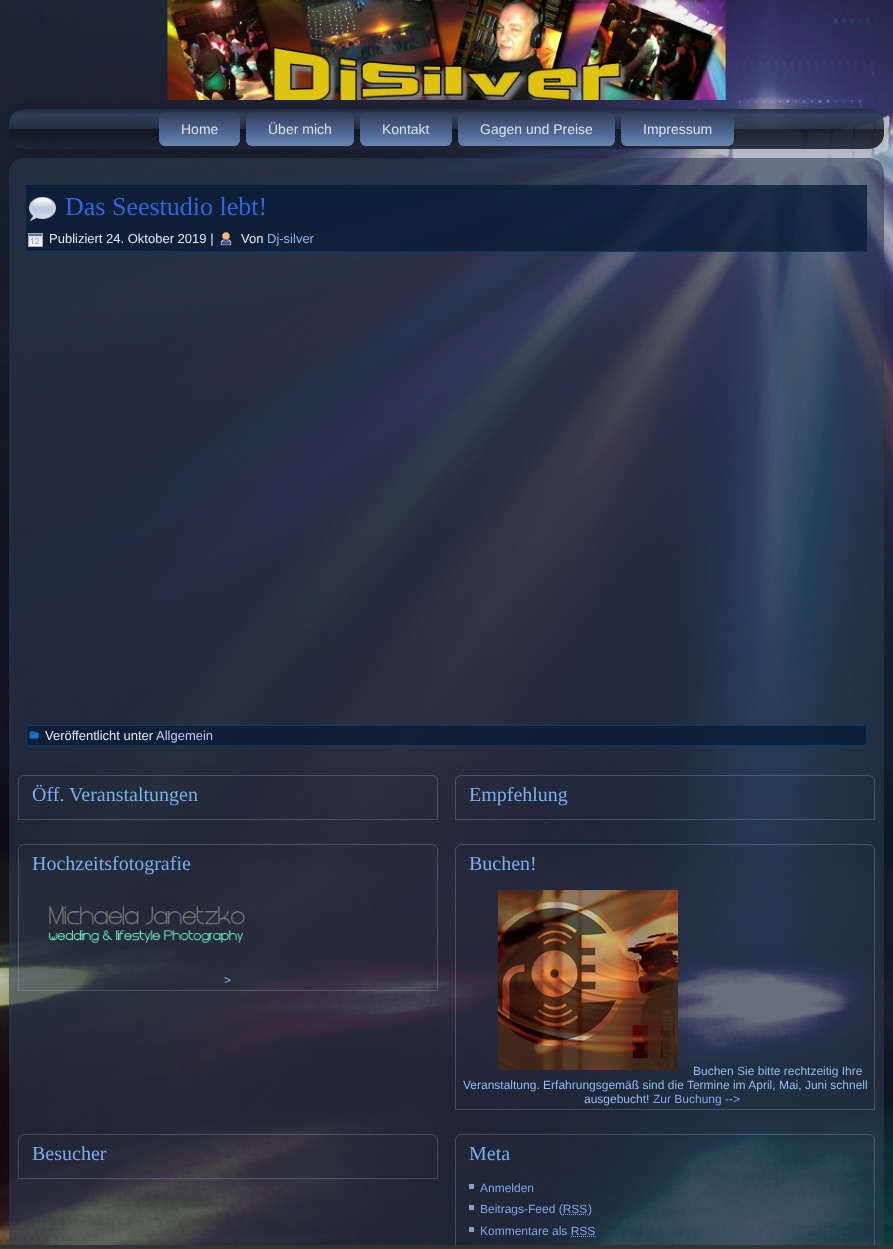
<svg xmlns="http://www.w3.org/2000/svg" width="893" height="1249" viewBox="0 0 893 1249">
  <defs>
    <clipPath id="clip1"><path d="M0 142H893V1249H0ZM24 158H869C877.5 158 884 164.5 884 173V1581H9V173C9 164.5 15.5 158 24 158Z" clip-rule="evenodd"/></clipPath>
    <clipPath id="clip2"><path d="M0 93H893V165H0ZM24 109H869C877.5 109 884 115.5 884 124V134C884 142.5 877.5 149 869 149H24C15.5 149 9 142.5 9 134V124C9 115.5 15.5 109 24 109Z" clip-rule="evenodd"/></clipPath>
    <linearGradient id="g1" gradientUnits="userSpaceOnUse" x1="447" y1="109" x2="447" y2="149"><stop offset="0" stop-color="rgb(32,42,60)" stop-opacity="0.91"/><stop offset="0.15" stop-color="rgb(50,65,93)" stop-opacity="0.91"/><stop offset="0.5" stop-color="rgb(36,46,66)" stop-opacity="0.91"/><stop offset="0.5" stop-color="rgb(16,21,30)" stop-opacity="0.91"/><stop offset="1" stop-color="rgb(29,37,53)" stop-opacity="0.91"/></linearGradient>
    <linearGradient id="g2" gradientUnits="userSpaceOnUse" x1="200" y1="112" x2="200" y2="146"><stop offset="0" stop-color="rgb(46,60,86)"/><stop offset="0.8" stop-color="rgb(89,116,166)"/><stop offset="1" stop-color="rgb(109,133,176)"/></linearGradient>
    <linearGradient id="g3" gradientUnits="userSpaceOnUse" x1="300" y1="112" x2="300" y2="146"><stop offset="0" stop-color="rgb(46,60,86)"/><stop offset="0.8" stop-color="rgb(89,116,166)"/><stop offset="1" stop-color="rgb(109,133,176)"/></linearGradient>
    <linearGradient id="g4" gradientUnits="userSpaceOnUse" x1="406" y1="112" x2="406" y2="146"><stop offset="0" stop-color="rgb(46,60,86)"/><stop offset="0.8" stop-color="rgb(89,116,166)"/><stop offset="1" stop-color="rgb(109,133,176)"/></linearGradient>
    <linearGradient id="g5" gradientUnits="userSpaceOnUse" x1="537" y1="112" x2="537" y2="146"><stop offset="0" stop-color="rgb(46,60,86)"/><stop offset="0.8" stop-color="rgb(89,116,166)"/><stop offset="1" stop-color="rgb(109,133,176)"/></linearGradient>
    <linearGradient id="g6" gradientUnits="userSpaceOnUse" x1="678" y1="112" x2="678" y2="146"><stop offset="0" stop-color="rgb(46,60,86)"/><stop offset="0.8" stop-color="rgb(89,116,166)"/><stop offset="1" stop-color="rgb(109,133,176)"/></linearGradient>
  </defs>
  <rect width="100%" height="100%" fill="rgb(255,255,255)"/>
  <image x="0" y="0" width="893" height="1245" href="pic1.png"/>
  <image x="167" y="0" width="559" height="100" href="pic2.png"/>
  <g clip-path="url(#clip1)">
    <rect x="5" y="154" width="883" height="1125" rx="19" fill="rgba(0,0,0,0.06)" filter="blur(3.5px)"/>
  </g>
  <path d="M24 158H869C877.5 158 884 164.5 884 173V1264H9V173C9 164.5 15.5 158 24 158Z" fill="rgba(43,56,80,0.6)"/>
  <g clip-path="url(#clip2)">
    <rect x="5" y="105" width="883" height="48" rx="19" fill="rgba(0,0,0,0.09)" filter="blur(3.5px)"/>
  </g>
  <rect x="9" y="109" width="875" height="40" rx="15" fill="url(#g1)"/>
  <rect x="159" y="112" width="81" height="34" rx="6" fill="url(#g2)"/>
  <text x="181" y="134" font-family="Liberation Sans" font-size="14" fill="rgb(219,224,235)">Home</text>
  <rect x="246" y="112" width="108" height="34" rx="6" fill="url(#g3)"/>
  <text x="268" y="134" font-family="Liberation Sans" font-size="14" fill="rgb(219,224,235)">Über mich</text>
  <rect x="360" y="112" width="92" height="34" rx="6" fill="url(#g4)"/>
  <text x="382" y="134" font-family="Liberation Sans" font-size="14" fill="rgb(219,224,235)">Kontakt</text>
  <rect x="458" y="112" width="157" height="34" rx="6" fill="url(#g5)"/>
  <text x="480" y="134" font-family="Liberation Sans" font-size="14" fill="rgb(219,224,235)">Gagen und Preise</text>
  <rect x="621" y="112" width="113" height="34" rx="6" fill="url(#g6)"/>
  <text x="643" y="134" font-family="Liberation Sans" font-size="14" fill="rgb(219,224,235)">Impressum</text>
  <rect x="26" y="185" width="841" height="66" fill="rgba(7,29,54,0.8)"/>
  <rect x="26" y="251" width="841" height="1" fill="rgb(13,56,104)"/>
  <image x="29" y="197" width="27" height="25" href="pic3.png"/>
  <text x="65" y="215" font-family="Liberation Serif" font-size="26" fill="rgb(44,102,226)">Das Seestudio lebt!</text>
  <image x="28" y="233" width="15" height="14" href="pic4.png"/>
  <text x="49" y="243" font-family="Liberation Sans" font-size="13" fill="rgb(223,236,251)">Publiziert 24. Oktober 2019 |</text>
  <image x="220" y="232" width="12" height="14" href="pic5.png"/>
  <text x="241" y="243" font-family="Liberation Sans" font-size="13" fill="rgb(223,236,251)">Von</text>
  <text x="267" y="243" font-family="Liberation Sans" font-size="13" fill="rgb(147,177,240)">Dj-silver</text>
  <rect x="26.5" y="725.5" width="840" height="20" rx="3.5" fill="rgba(7,29,54,0.8)" stroke="rgb(13,56,104)"/>
  <image x="29" y="731" width="10" height="8" href="pic6.png"/>
  <text x="45" y="740" font-family="Liberation Sans" font-size="13" fill="rgb(223,236,251)">Veröffentlicht unter</text>
  <text x="156" y="740" font-family="Liberation Sans" font-size="13" fill="rgb(183,203,245)">Allgemein</text>
  <path d="M24 775.5H432C435 775.5 437.5 778 437.5 781V819.5H18.5V781C18.5 778 21 775.5 24 775.5Z" fill="none" stroke="rgba(156,172,201,0.3)"/>
  <text x="32" y="801" font-family="Liberation Serif" font-size="20" fill="rgb(119,175,238)">Öff. Veranstaltungen</text>
  <path d="M461 775.5H869C872 775.5 874.5 778 874.5 781V819.5H455.5V781C455.5 778 458 775.5 461 775.5Z" fill="none" stroke="rgba(156,172,201,0.3)"/>
  <text x="469" y="801" font-family="Liberation Serif" font-size="20" fill="rgb(119,175,238)">Empfehlung</text>
  <path d="M24 844.5H432C435 844.5 437.5 847 437.5 850V990.5H18.5V850C18.5 847 21 844.5 24 844.5Z" fill="none" stroke="rgba(156,172,201,0.3)"/>
  <text x="32" y="870" font-family="Liberation Serif" font-size="20" fill="rgb(119,175,238)">Hochzeitsfotografie</text>
  <image x="48" y="906" width="197" height="37" href="pic7.png"/>
  <text x="224" y="984" font-family="Liberation Sans" font-size="12" fill="rgb(142,188,241)">&gt;</text>
  <path d="M461 844.5H869C872 844.5 874.5 847 874.5 850V1109.5H455.5V850C455.5 847 458 844.5 461 844.5Z" fill="none" stroke="rgba(156,172,201,0.3)"/>
  <text x="469" y="870" font-family="Liberation Serif" font-size="20" fill="rgb(119,175,238)">Buchen!</text>
  <image x="498" y="890" width="180" height="180" href="pic8.png"/>
  <g font-family="Liberation Sans" font-size="12" fill="rgb(142,188,241)">
    <text x="693" y="1075">Buchen Sie bitte rechtzeitig Ihre</text>
    <text x="463" y="1089">Veranstaltung. Erfahrungsgemäß sind die Termine im April, Mai, Juni schnell</text>
    <text x="584" y="1103">ausgebucht!</text>
  </g>
  <text x="653" y="1103" font-family="Liberation Sans" font-size="12" fill="rgb(129,164,238)">Zur Buchung --&gt;</text>
  <path d="M24 1134.5H432C435 1134.5 437.5 1137 437.5 1140V1178.5H18.5V1140C18.5 1137 21 1134.5 24 1134.5Z" fill="none" stroke="rgba(156,172,201,0.3)"/>
  <text x="32" y="1160" font-family="Liberation Serif" font-size="20" fill="rgb(119,175,238)">Besucher</text>
  <path d="M461 1134.5H869C872 1134.5 874.5 1137 874.5 1140V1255.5H455.5V1140C455.5 1137 458 1134.5 461 1134.5Z" fill="none" stroke="rgba(156,172,201,0.3)"/>
  <text x="469" y="1160" font-family="Liberation Serif" font-size="20" fill="rgb(119,175,238)">Meta</text>
  <rect x="469" y="1184" width="5" height="5" fill="rgb(139,158,193)"/>
  <text x="480" y="1192" font-family="Liberation Sans" font-size="12" fill="rgb(129,164,238)">Anmelden</text>
  <rect x="469" y="1205" width="5" height="5" fill="rgb(139,158,193)"/>
  <text x="480" y="1213" font-family="Liberation Sans" font-size="12" fill="rgb(129,164,238)">Beitrags-Feed (RSS</text>
  <path d="M563 1214.5H587.5" fill="none" stroke="rgb(129,164,238)" stroke-dasharray="1 1"/>
  <text x="588" y="1213" font-family="Liberation Sans" font-size="12" fill="rgb(129,164,238)">)</text>
  <rect x="469" y="1227" width="5" height="5" fill="rgb(139,158,193)"/>
  <text x="480" y="1235" font-family="Liberation Sans" font-size="12" fill="rgb(129,164,238)">Kommentare als RSS</text>
  <path d="M571 1236.5H595.5" fill="none" stroke="rgb(129,164,238)" stroke-dasharray="1 1"/>
  <rect x="0" y="1245" width="893" height="4" fill="rgb(51,51,51)"/>
</svg>
